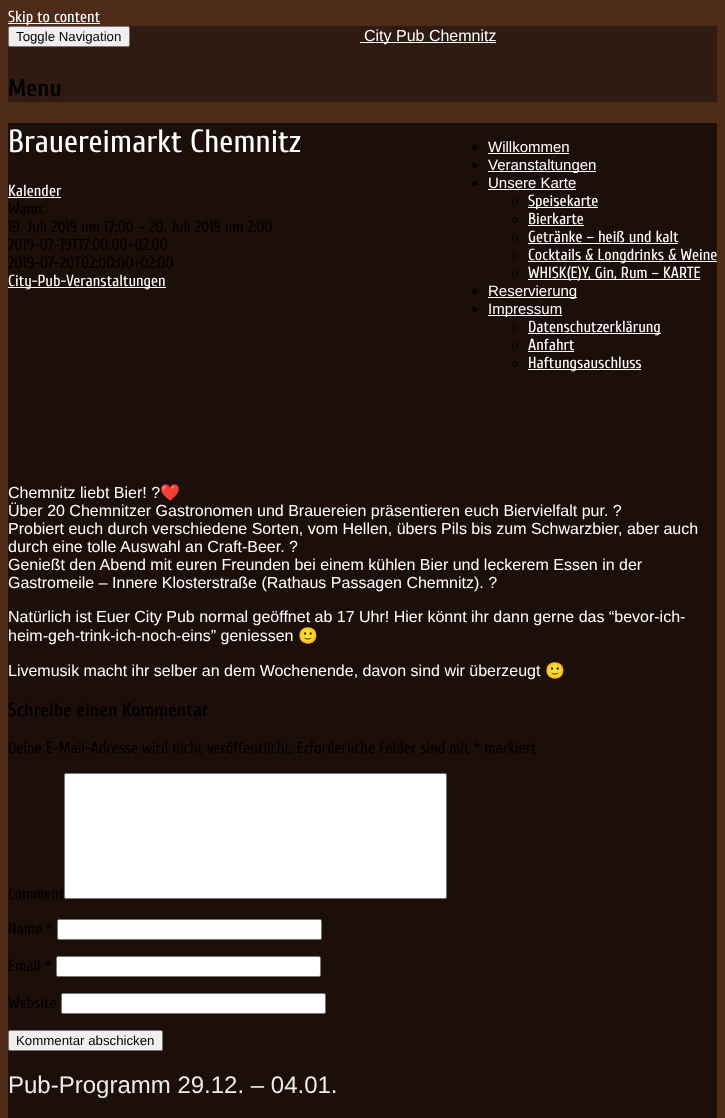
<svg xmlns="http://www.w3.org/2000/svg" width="725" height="1118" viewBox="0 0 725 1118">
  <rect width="100%" height="100%" fill="rgb(78,43,25)"/>
  <rect x="8" y="23" width="92" height="1" fill="rgb(255,255,255)"/>
  <text x="8" y="22" font-family="Cuprum" font-size="16" fill="rgb(255,255,255)">Skip to content</text>
  <rect x="8" y="26" width="709" height="76" fill="rgb(47,27,18)"/>
  <rect x="8.5" y="26.5" width="121" height="20" rx="1.5" fill="rgb(239,239,239)" stroke="rgb(118,118,118)"/>
  <text x="16" y="41" font-family="Liberation Sans" font-size="13.25" fill="rgb(0,0,0)">Toggle Navigation</text>
  <rect x="360" y="42" width="136" height="1" fill="rgb(255,255,255)"/>
  <text x="364" y="41" font-family="Liberation Sans" font-size="16" fill="rgb(255,255,255)">City Pub Chemnitz</text>
  <text x="8" y="96" font-family="Cuprum" font-size="24" font-weight="bold" fill="rgb(0,0,0)">Menu</text>
  <rect x="8" y="123" width="709" height="995" fill="rgb(28,15,9)"/>
  <circle cx="474.5" cy="147.5" r="2.5" fill="rgb(0,0,0)"/>
  <text x="488" y="152" font-family="Liberation Sans" font-size="15" fill="rgb(255,255,255)">Willkommen</text>
  <rect x="488" y="153" width="81" height="1" fill="rgb(255,255,255)"/>
  <circle cx="474.5" cy="165.5" r="2.5" fill="rgb(0,0,0)"/>
  <rect x="488" y="171" width="108" height="1" fill="rgb(255,255,255)"/>
  <text x="488" y="170" font-family="Liberation Sans" font-size="15" fill="rgb(255,255,255)">Veranstaltungen</text>
  <circle cx="474.5" cy="183.5" r="2.5" fill="rgb(0,0,0)"/>
  <text x="488" y="188" font-family="Liberation Sans" font-size="15" fill="rgb(255,255,255)">Unsere Karte</text>
  <rect x="488" y="189" width="88" height="1" fill="rgb(255,255,255)"/>
  <circle cx="515" cy="202" r="2.5" fill="none" stroke="rgb(0,0,0)"/>
  <rect x="528" y="207" width="70" height="1" fill="rgb(255,255,255)"/>
  <text x="528" y="206" font-family="Cuprum" font-size="16" fill="rgb(255,255,255)">Speisekarte</text>
  <circle cx="515" cy="220" r="2.5" fill="none" stroke="rgb(0,0,0)"/>
  <text x="528" y="224" font-family="Cuprum" font-size="16" fill="rgb(255,255,255)">Bierkarte</text>
  <rect x="528" y="225" width="56" height="1" fill="rgb(255,255,255)"/>
  <circle cx="515" cy="238" r="2.5" fill="none" stroke="rgb(0,0,0)"/>
  <text x="528" y="242" font-family="Cuprum" font-size="16" fill="rgb(255,255,255)">Getränke – heiß und kalt</text>
  <rect x="528" y="243" width="150" height="1" fill="rgb(255,255,255)"/>
  <circle cx="515" cy="256" r="2.5" fill="none" stroke="rgb(0,0,0)"/>
  <rect x="528" y="261" width="189" height="1" fill="rgb(255,255,255)"/>
  <text x="528" y="260" font-family="Cuprum" font-size="16" fill="rgb(255,255,255)">Cocktails &amp; Longdrinks &amp; Weine</text>
  <circle cx="515" cy="274" r="2.5" fill="none" stroke="rgb(0,0,0)"/>
  <rect x="528" y="279" width="172" height="1" fill="rgb(255,255,255)"/>
  <text x="528" y="278" font-family="Cuprum" font-size="16" fill="rgb(255,255,255)">WHISK(E)Y, Gin, Rum – KARTE</text>
  <circle cx="474.5" cy="291.5" r="2.5" fill="rgb(0,0,0)"/>
  <rect x="488" y="297" width="89" height="1" fill="rgb(255,255,255)"/>
  <text x="488" y="296" font-family="Liberation Sans" font-size="15" fill="rgb(255,255,255)">Reservierung</text>
  <circle cx="474.5" cy="309.5" r="2.5" fill="rgb(0,0,0)"/>
  <rect x="488" y="315" width="74" height="1" fill="rgb(255,255,255)"/>
  <text x="488" y="314" font-family="Liberation Sans" font-size="15" fill="rgb(255,255,255)">Impressum</text>
  <circle cx="515" cy="328" r="2.5" fill="none" stroke="rgb(0,0,0)"/>
  <rect x="528" y="333" width="133" height="1" fill="rgb(255,255,255)"/>
  <text x="528" y="332" font-family="Cuprum" font-size="16" fill="rgb(255,255,255)">Datenschutzerklärung</text>
  <circle cx="515" cy="346" r="2.5" fill="none" stroke="rgb(0,0,0)"/>
  <text x="528" y="350" font-family="Cuprum" font-size="16" fill="rgb(255,255,255)">Anfahrt</text>
  <rect x="528" y="351" width="46" height="1" fill="rgb(255,255,255)"/>
  <circle cx="515" cy="364" r="2.5" fill="none" stroke="rgb(0,0,0)"/>
  <rect x="528" y="369" width="113" height="1" fill="rgb(255,255,255)"/>
  <text x="528" y="368" font-family="Cuprum" font-size="16" fill="rgb(255,255,255)">Haftungsauschluss</text>
  <text x="8" y="152" font-family="Cuprum" font-size="32" fill="rgb(255,255,255)">Brauereimarkt Chemnitz</text>
  <text x="8" y="196" font-family="Cuprum" font-size="16" fill="rgb(255,255,255)">Kalender</text>
  <rect x="8" y="197" width="53" height="1" fill="rgb(255,255,255)"/>
  <g font-family="Cuprum" font-size="16" fill="rgb(0,0,0)">
    <text>
      <tspan x="8" y="214">Wann:</tspan>
      <tspan x="8" y="232">19. Juli 2019 um 17:00 – 20. Juli 2019 um 2:00</tspan>
      <tspan x="8" y="250">2019-07-19T17:00:00+02:00</tspan>
      <tspan x="8" y="268">2019-07-20T02:00:00+02:00</tspan>
    </text>
  </g>
  <rect x="8" y="287" width="158" height="1" fill="rgb(255,255,255)"/>
  <text x="8" y="286" font-family="Cuprum" font-size="16" fill="rgb(255,255,255)">City-Pub-Veranstaltungen</text>
  <text x="8" y="498" font-family="Liberation Sans" font-size="16" fill="rgb(255,255,255)">Chemnitz liebt Bier! ?</text>
  <text x="160" y="498" font-family="Noto Color Emoji" font-size="16" fill="rgb(255,255,255)">❤️</text>
  <g font-family="Liberation Sans" font-size="16" fill="rgb(255,255,255)">
    <text>
      <tspan x="8" y="516">Über 20 Chemnitzer Gastronomen und Brauereien präsentieren euch Biervielfalt pur. ?</tspan>
      <tspan x="8" y="534">Probiert euch durch verschiedene Sorten, vom Hellen, übers Pils bis zum Schwarzbier, aber auch</tspan>
      <tspan x="8" y="552">durch eine tolle Auswahl an Craft-Beer. ?</tspan>
      <tspan x="8" y="570">Genießt den Abend mit euren Freunden bei einem kühlen Bier und leckerem Essen in der</tspan>
      <tspan x="8" y="588">Gastromeile – Innere Klosterstraße (Rathaus Passagen Chemnitz). ?</tspan>
    </text>
    <text>
      <tspan x="8" y="622">Natürlich ist Euer City Pub normal geöffnet ab 17 Uhr! Hier könnt ihr dann gerne das “bevor-ich-</tspan>
      <tspan x="8" y="641">heim-geh-trink-ich-noch-eins” geniessen</tspan>
    </text>
  </g>
  <text x="298" y="641" font-family="Noto Color Emoji" font-size="16" fill="rgb(255,255,255)">🙂</text>
  <text x="8" y="676" font-family="Liberation Sans" font-size="16" fill="rgb(255,255,255)">Livemusik macht ihr selber an dem Wochenende, davon sind wir überzeugt</text>
  <text x="545" y="676" font-family="Noto Color Emoji" font-size="16" fill="rgb(255,255,255)">🙂</text>
  <text x="8" y="716" font-family="Cuprum" font-size="18.75" font-weight="bold" fill="rgb(0,0,0)">Schreibe einen Kommentar</text>
  <g font-family="Cuprum" font-size="16" fill="rgb(0,0,0)">
    <text x="8" y="753">Deine E-Mail-Adresse wird nicht veröffentlicht. Erforderliche Felder sind mit * markiert</text>
    <text x="8" y="899">Comment</text>
  </g>
  <rect x="64.5" y="773.5" width="382" height="125" rx="1.5" fill="rgb(255,255,255)" stroke="rgb(118,118,118)"/>
  <text x="8" y="934" font-family="Cuprum" font-size="16" fill="rgb(0,0,0)">Name *</text>
  <rect x="57.5" y="919.5" width="264" height="20" rx="1.5" fill="rgb(255,255,255)" stroke="rgb(118,118,118)"/>
  <text x="8" y="971" font-family="Cuprum" font-size="16" fill="rgb(0,0,0)">Email *</text>
  <rect x="56.5" y="956.5" width="264" height="20" rx="1.5" fill="rgb(255,255,255)" stroke="rgb(118,118,118)"/>
  <text x="8" y="1008" font-family="Cuprum" font-size="16" fill="rgb(0,0,0)">Website</text>
  <rect x="61.5" y="993.5" width="264" height="20" rx="1.5" fill="rgb(255,255,255)" stroke="rgb(118,118,118)"/>
  <rect x="8.5" y="1030.5" width="154" height="20" rx="1.5" fill="rgb(239,239,239)" stroke="rgb(118,118,118)"/>
  <text x="16" y="1045" font-family="Liberation Sans" font-size="13.25" fill="rgb(0,0,0)">Kommentar abschicken</text>
  <text x="8" y="1093" font-family="Liberation Sans" font-size="24" fill="rgb(237,237,237)">Pub-Programm 29.12. – 04.01.</text>
</svg>
